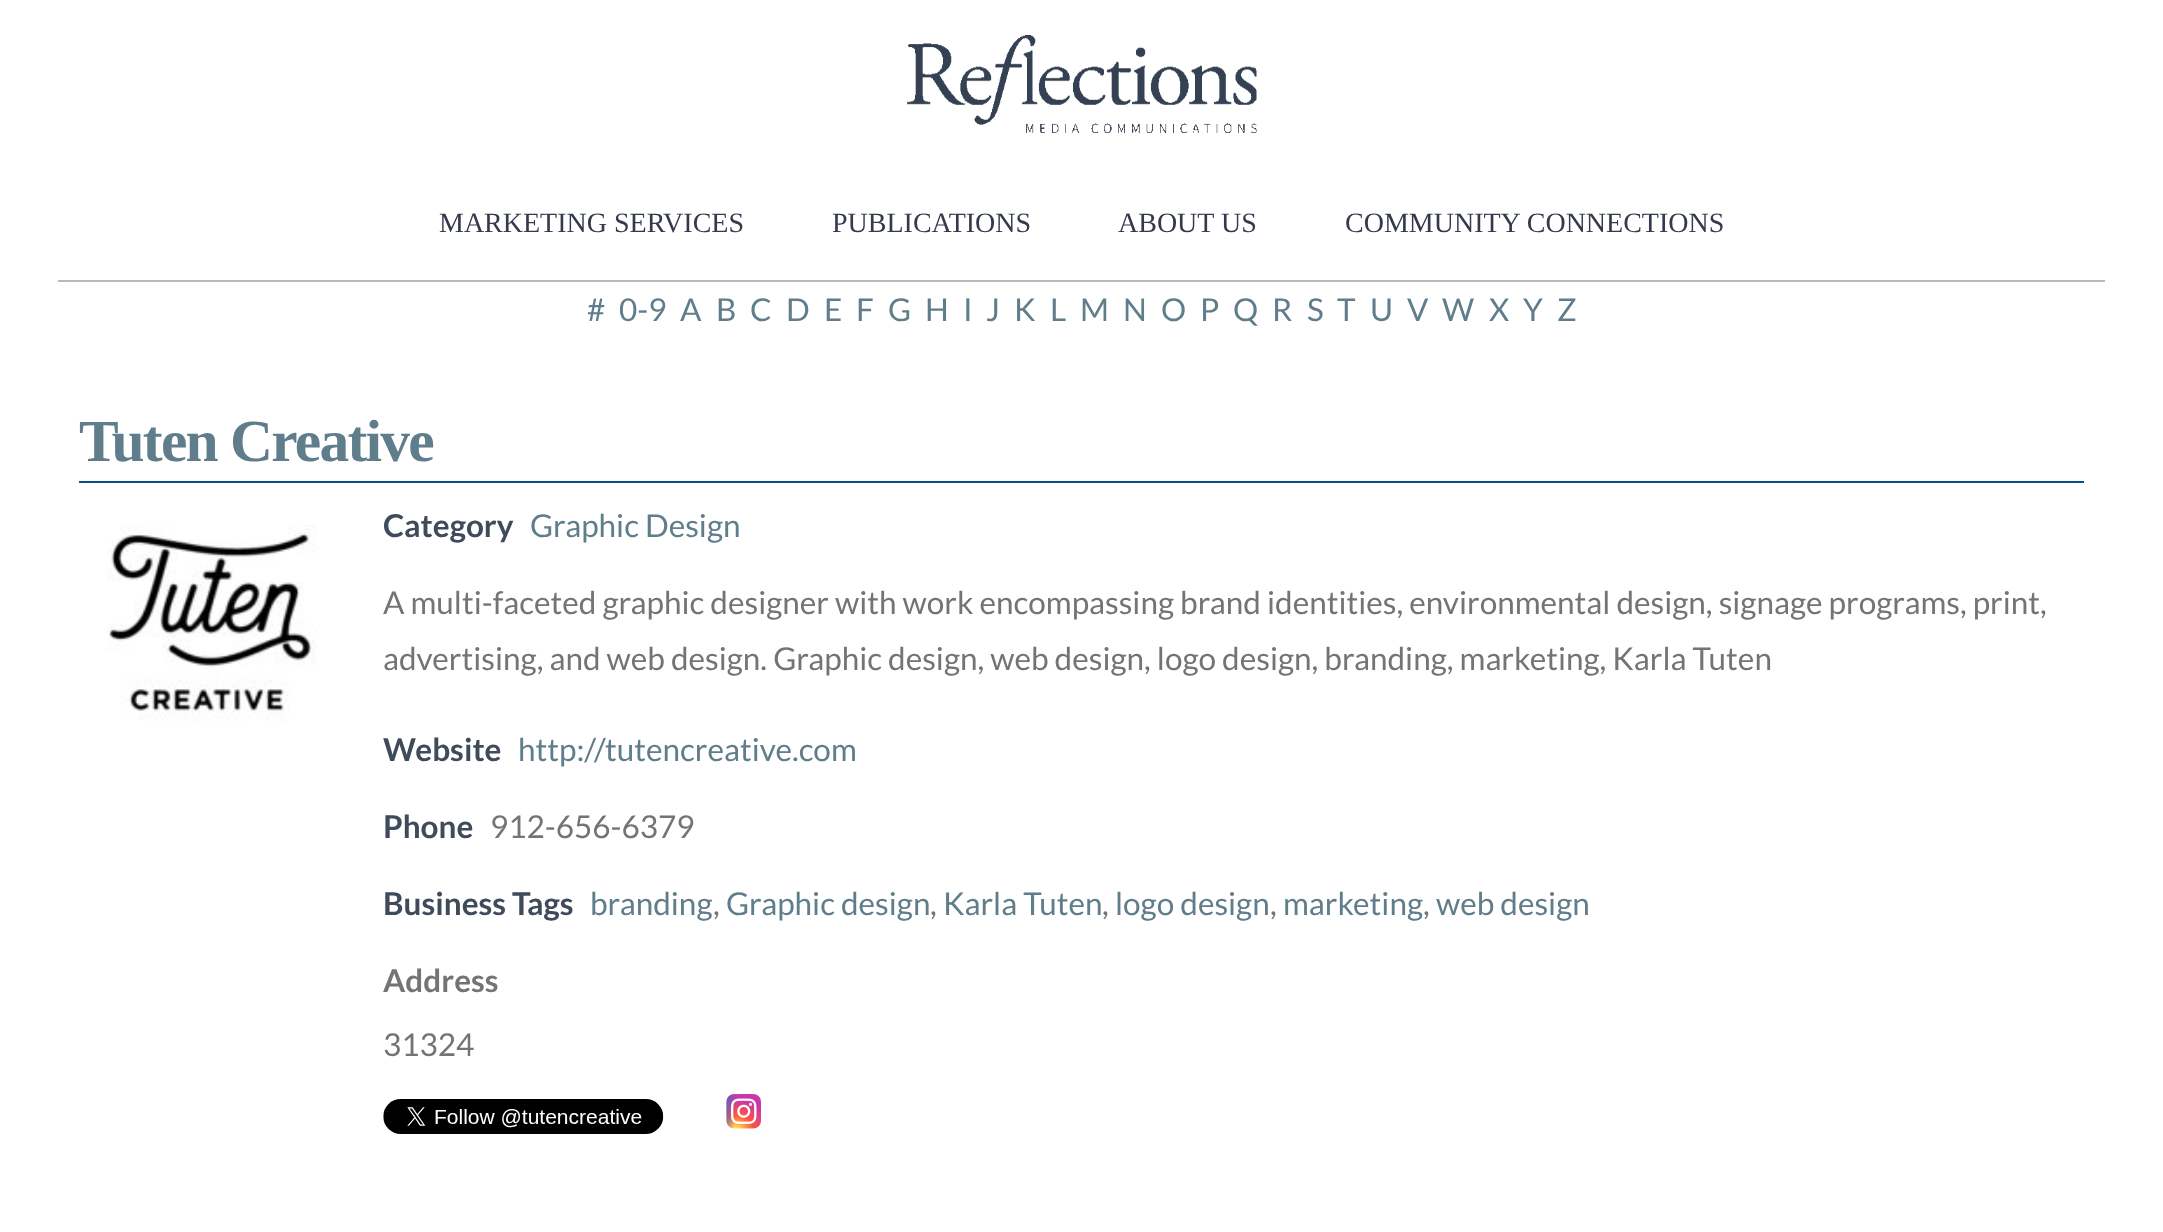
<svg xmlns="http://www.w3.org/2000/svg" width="2163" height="1232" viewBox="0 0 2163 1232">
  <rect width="100%" height="100%" fill="rgb(255,255,255)"/>
  <image x="907" y="35" width="350" height="98" href="pic1.png"/>
  <g font-family="Liberation Serif" font-size="28" fill="rgb(52,58,76)">
    <text x="439" y="232">MARKETING SERVICES</text>
    <text x="832" y="232">PUBLICATIONS</text>
    <text x="1118" y="232">ABOUT US</text>
    <text x="1345" y="232">COMMUNITY CONNECTIONS</text>
  </g>
  <rect x="58" y="280" width="2047" height="2" fill="rgb(186,185,184)"/>
  <g font-family="Lato" font-size="31.5" fill="rgb(96,125,139)">
    <text x="587" y="321">#</text>
    <text x="619" y="321">0-9</text>
    <text x="680" y="321">A</text>
    <text x="716" y="321">B</text>
    <text x="750" y="321">C</text>
    <text x="786" y="321">D</text>
    <text x="824" y="321">E</text>
    <text x="856" y="321">F</text>
    <text x="888" y="321">G</text>
    <text x="925" y="321">H</text>
    <text x="963" y="321">I</text>
    <text x="986" y="321">J</text>
    <text x="1014" y="321">K</text>
    <text x="1050" y="321">L</text>
    <text x="1080" y="321">M</text>
    <text x="1123" y="321">N</text>
    <text x="1161" y="321">O</text>
    <text x="1200" y="321">P</text>
    <text x="1233" y="321">Q</text>
    <text x="1272" y="321">R</text>
    <text x="1307" y="321">S</text>
    <text x="1337" y="321">T</text>
    <text x="1370" y="321">U</text>
    <text x="1407" y="321">V</text>
    <text x="1442" y="321">W</text>
    <text x="1489" y="321">X</text>
    <text x="1523" y="321">Y</text>
    <text x="1557" y="321">Z</text>
  </g>
  <rect x="79" y="481" width="2005" height="2" fill="rgb(4,79,141)"/>
  <text x="79" y="461" font-family="Liberation Serif" font-size="59.5" font-weight="bold" letter-spacing="-1.75" fill="rgb(96,125,139)">Tuten Creative</text>
  <image x="107" y="525" width="210" height="196" href="pic2.png"/>
  <text x="383" y="537" font-family="Lato" font-size="31.5" font-weight="bold" fill="rgb(63,75,91)">Category</text>
  <text x="530" y="537" font-family="Lato" font-size="31.5" fill="rgb(96,125,139)">Graphic Design</text>
  <g font-family="Lato" font-size="31.5" fill="rgb(116,116,116)">
    <text>
      <tspan x="383" y="614">A multi-faceted graphic designer with work encompassing brand identities, environmental design, signage programs, print,</tspan>
      <tspan x="383" y="670">advertising, and web design. Graphic design, web design, logo design, branding, marketing, Karla Tuten</tspan>
    </text>
  </g>
  <text x="383" y="761" font-family="Lato" font-size="31.5" font-weight="bold" fill="rgb(63,75,91)">Website</text>
  <text x="518" y="761" font-family="Lato" font-size="31.5" fill="rgb(96,125,139)">http://tutencreative.com</text>
  <text x="383" y="838" font-family="Lato" font-size="31.5" font-weight="bold" fill="rgb(63,75,91)">Phone</text>
  <text x="490" y="838" font-family="Lato" font-size="31.5" fill="rgb(116,116,116)">912-656-6379</text>
  <text x="383" y="915" font-family="Lato" font-size="31.5" font-weight="bold" fill="rgb(63,75,91)">Business Tags</text>
  <text x="590" y="915" font-family="Lato" font-size="31.5" fill="rgb(96,125,139)">branding</text>
  <text x="713" y="915" font-family="Lato" font-size="31.5" fill="rgb(116,116,116)">,</text>
  <text x="726" y="915" font-family="Lato" font-size="31.5" fill="rgb(96,125,139)">Graphic design</text>
  <text x="930" y="915" font-family="Lato" font-size="31.5" fill="rgb(116,116,116)">,</text>
  <text x="943" y="915" font-family="Lato" font-size="31.5" fill="rgb(96,125,139)">Karla Tuten</text>
  <text x="1102" y="915" font-family="Lato" font-size="31.5" fill="rgb(116,116,116)">,</text>
  <text x="1115" y="915" font-family="Lato" font-size="31.5" fill="rgb(96,125,139)">logo design</text>
  <text x="1270" y="915" font-family="Lato" font-size="31.5" fill="rgb(116,116,116)">,</text>
  <text x="1283" y="915" font-family="Lato" font-size="31.5" fill="rgb(96,125,139)">marketing</text>
  <text x="1423" y="915" font-family="Lato" font-size="31.5" fill="rgb(116,116,116)">,</text>
  <text x="1436" y="915" font-family="Lato" font-size="31.5" fill="rgb(96,125,139)">web design</text>
  <text x="383" y="992" font-family="Lato" font-size="31.5" font-weight="bold" fill="rgb(116,116,116)">Address</text>
  <text x="383" y="1056" font-family="Lato" font-size="31.5" fill="rgb(116,116,116)">31324</text>
  <image x="383" y="1099" width="281" height="35" href="pic3.png"/>
  <image x="726" y="1094" width="35" height="35" href="pic4.png"/>
</svg>
